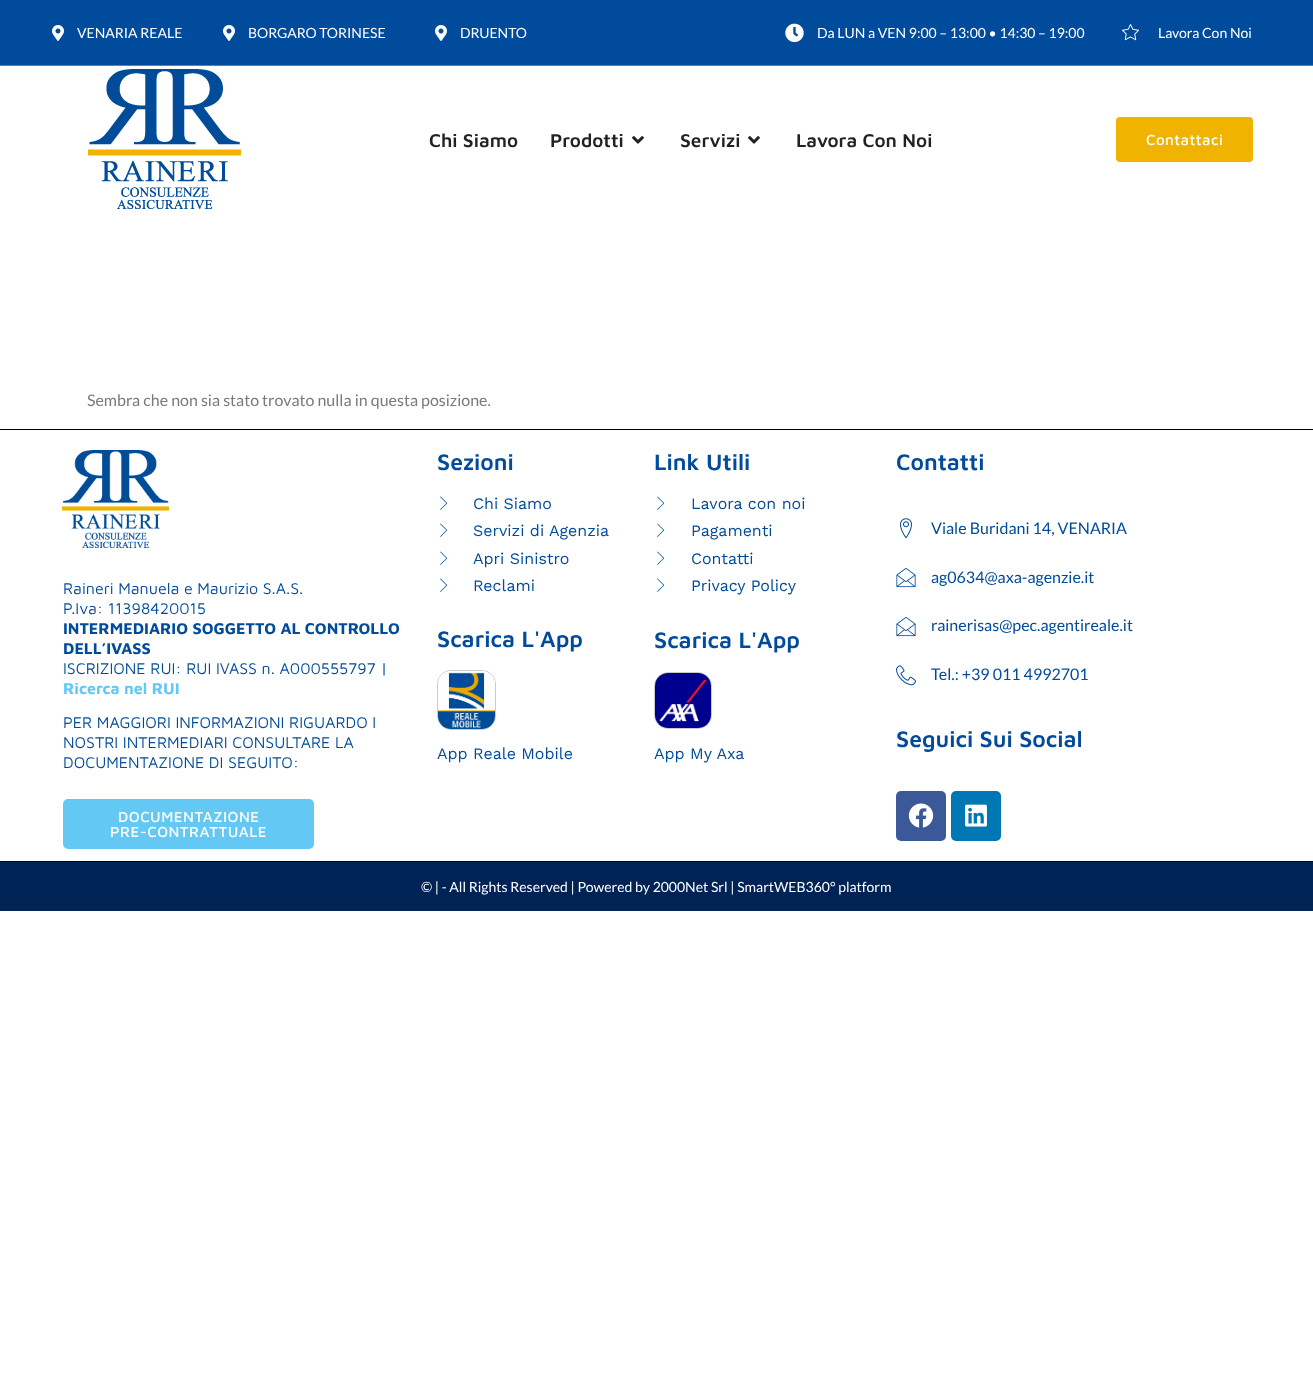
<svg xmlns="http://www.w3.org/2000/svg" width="1313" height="1390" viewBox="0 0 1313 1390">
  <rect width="100%" height="100%" fill="rgb(255,255,255)"/>
  <rect x="0" y="0" width="1313" height="65" fill="rgb(0,75,155)"/>
  <rect x="0" y="65" width="1313" height="1" fill="rgb(122,122,122)"/>
  <image x="52" y="25" width="12" height="16" href="pic1.png"/>
  <text x="77" y="38" font-family="Lato" font-size="14" fill="rgb(255,255,255)">VENARIA REALE</text>
  <image x="223" y="25" width="12" height="16" href="pic1.png"/>
  <text x="248" y="38" font-family="Lato" font-size="14" fill="rgb(255,255,255)">BORGARO TORINESE</text>
  <image x="435" y="25" width="12" height="16" href="pic1.png"/>
  <text x="460" y="38" font-family="Lato" font-size="14" fill="rgb(255,255,255)">DRUENTO</text>
  <image x="785" y="23" width="19" height="20" href="pic2.png"/>
  <text x="817" y="38" font-family="Lato" font-size="14" fill="rgb(255,255,255)">Da LUN a VEN 9:00 – 13:00 • 14:30 – 19:00</text>
  <image x="1122" y="24" width="17" height="17" href="pic3.png"/>
  <text x="1158" y="38" font-family="Lato" font-size="14" fill="rgb(255,255,255)">Lavora Con Noi</text>
  <image x="88" y="69" width="153" height="140" href="pic4.png"/>
  <g font-family="Maven Pro" font-size="19" font-weight="600" fill="rgb(31,33,36)">
    <text x="429" y="147">Chi Siamo</text>
    <text x="550" y="147">Prodotti</text>
  </g>
  <image x="632" y="136" width="12" height="8" href="pic5.png"/>
  <text x="680" y="147" font-family="Maven Pro" font-size="19" font-weight="600" fill="rgb(31,33,36)">Servizi</text>
  <image x="748" y="136" width="12" height="8" href="pic5.png"/>
  <text x="796" y="147" font-family="Maven Pro" font-size="19" font-weight="600" fill="rgb(31,33,36)">Lavora Con Noi</text>
  <rect x="1116" y="117" width="137" height="45" rx="4" fill="rgb(240,180,0)"/>
  <text x="1146" y="145" font-family="Maven Pro" font-size="15" font-weight="500" letter-spacing="0.5" fill="rgb(255,255,255)">Contattaci</text>
  <text x="87" y="406" font-family="Lato" font-size="16" fill="rgb(122,122,122)">Sembra che non sia stato trovato nulla in questa posizione.</text>
  <rect x="0" y="429" width="1313" height="1" fill="rgb(0,0,0)"/>
  <image x="62" y="450" width="107" height="98" href="pic6.png"/>
  <g font-family="Maven Pro" font-size="16" fill="rgb(0,75,155)">
    <text>
      <tspan x="63" y="594">Raineri Manuela e Maurizio S.A.S.</tspan>
      <tspan x="63" y="614">P.Iva: 11398420015</tspan>
    </text>
  </g>
  <g font-family="Maven Pro" font-size="16" font-weight="bold" fill="rgb(0,75,155)">
    <text>
      <tspan x="63" y="634">INTERMEDIARIO SOGGETTO AL CONTROLLO</tspan>
      <tspan x="63" y="654">DELL’IVASS</tspan>
    </text>
  </g>
  <text x="63" y="674" font-family="Maven Pro" font-size="16" fill="rgb(0,75,155)">ISCRIZIONE RUI: RUI IVASS n. A000555797 |</text>
  <text x="63" y="694" font-family="Maven Pro" font-size="16" font-weight="bold" fill="rgb(100,200,245)">Ricerca nel RUI</text>
  <g font-family="Maven Pro" font-size="16" fill="rgb(0,75,155)">
    <text>
      <tspan x="63" y="728">PER MAGGIORI INFORMAZIONI RIGUARDO I</tspan>
      <tspan x="63" y="748">NOSTRI INTERMEDIARI CONSULTARE LA</tspan>
      <tspan x="63" y="768">DOCUMENTAZIONE DI SEGUITO:</tspan>
    </text>
  </g>
  <rect x="63" y="799" width="251" height="50" rx="5" fill="rgb(100,200,245)"/>
  <g font-family="Maven Pro" font-size="15" font-weight="500" letter-spacing="0.5" fill="rgb(255,255,255)">
    <text x="118" y="822">DOCUMENTAZIONE</text>
    <text x="110" y="837">PRE-CONTRATTUALE</text>
  </g>
  <text x="437" y="470" font-family="Maven Pro" font-size="23" font-weight="600" fill="rgb(0,75,155)">Sezioni</text>
  <image x="440" y="496" width="8" height="14" href="pic7.png"/>
  <text x="473" y="509" font-family="Work Sans" font-size="16" fill="rgb(0,75,155)">Chi Siamo</text>
  <image x="440" y="523" width="8" height="14" href="pic7.png"/>
  <text x="473" y="536" font-family="Work Sans" font-size="16" fill="rgb(0,75,155)">Servizi di Agenzia</text>
  <image x="440" y="551" width="8" height="14" href="pic7.png"/>
  <text x="473" y="564" font-family="Work Sans" font-size="16" fill="rgb(0,75,155)">Apri Sinistro</text>
  <image x="440" y="578" width="8" height="14" href="pic7.png"/>
  <text x="473" y="591" font-family="Work Sans" font-size="16" fill="rgb(0,75,155)">Reclami</text>
  <text x="437" y="647" font-family="Maven Pro" font-size="23" font-weight="600" fill="rgb(0,75,155)">Scarica L'App</text>
  <rect x="437.5" y="670.5" width="58" height="59" rx="13.5" fill="none" stroke="rgb(202,202,202)"/>
  <image x="438" y="671" width="57" height="58" href="pic8.png"/>
  <text x="437" y="759" font-family="Work Sans" font-size="16" fill="rgb(0,75,155)">App Reale Mobile</text>
  <text x="654" y="470" font-family="Maven Pro" font-size="23" font-weight="600" fill="rgb(0,75,155)">Link Utili</text>
  <image x="657" y="496" width="8" height="14" href="pic7.png"/>
  <text x="691" y="509" font-family="Work Sans" font-size="16" fill="rgb(0,75,155)">Lavora con noi</text>
  <image x="657" y="523" width="8" height="14" href="pic7.png"/>
  <text x="691" y="536" font-family="Work Sans" font-size="16" fill="rgb(0,75,155)">Pagamenti</text>
  <image x="657" y="551" width="8" height="14" href="pic7.png"/>
  <text x="691" y="564" font-family="Work Sans" font-size="16" fill="rgb(0,75,155)">Contatti</text>
  <image x="657" y="578" width="8" height="14" href="pic7.png"/>
  <text x="691" y="591" font-family="Work Sans" font-size="16" fill="rgb(0,75,155)">Privacy Policy</text>
  <text x="654" y="648" font-family="Maven Pro" font-size="23" font-weight="600" fill="rgb(0,75,155)">Scarica L'App</text>
  <rect x="654.5" y="672.5" width="57" height="56" rx="13.5" fill="none" stroke="rgb(202,202,202)"/>
  <image x="655" y="673" width="56" height="55" href="pic9.png"/>
  <text x="654" y="759" font-family="Work Sans" font-size="16" fill="rgb(0,75,155)">App My Axa</text>
  <text x="896" y="470" font-family="Maven Pro" font-size="23" font-weight="600" fill="rgb(0,75,155)">Contatti</text>
  <image x="900" y="518" width="12" height="21" href="pic10.png"/>
  <text x="931" y="534" font-family="Lato" font-size="16" fill="rgb(0,75,155)">Viale Buridani 14, VENARIA</text>
  <image x="896" y="568" width="20" height="20" href="pic11.png"/>
  <text x="931" y="583" font-family="Lato" font-size="16" fill="rgb(0,75,155)">ag0634@axa-agenzie.it</text>
  <image x="896" y="617" width="20" height="20" href="pic11.png"/>
  <text x="931" y="631" font-family="Lato" font-size="16" fill="rgb(0,75,155)">rainerisas@pec.agentireale.it</text>
  <image x="896" y="665" width="20" height="21" href="pic12.png"/>
  <text x="931" y="680" font-family="Lato" font-size="16" fill="rgb(0,75,155)">Tel.: +39 011 4992701</text>
  <text x="896" y="747" font-family="Maven Pro" font-size="23" font-weight="600" fill="rgb(0,75,155)">Seguici Sui Social</text>
  <rect x="896" y="791" width="50" height="50" rx="5" fill="rgb(59,89,152)"/>
  <image x="908" y="803" width="26" height="25" href="pic13.png"/>
  <rect x="951" y="791" width="50" height="50" rx="5" fill="rgb(0,119,181)"/>
  <image x="965" y="804" width="22" height="23" href="pic14.png"/>
  <rect x="0" y="862" width="1313" height="49" fill="rgb(0,35,85)"/>
  <rect x="0" y="861" width="1313" height="1" fill="rgb(0,0,0)"/>
  <text x="421" y="892" font-family="Lato" font-size="14" fill="rgb(255,255,255)">© | - All Rights Reserved | Powered by 2000Net Srl | SmartWEB360° platform</text>
</svg>
